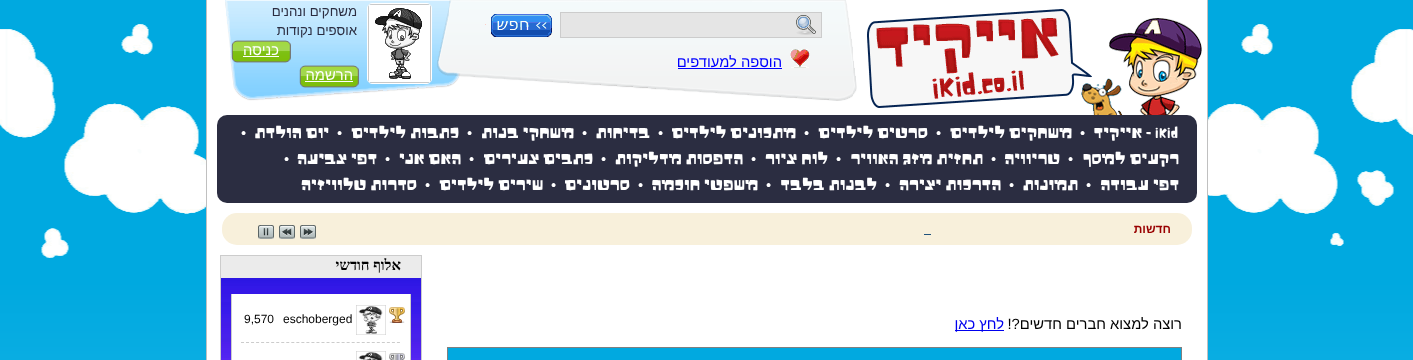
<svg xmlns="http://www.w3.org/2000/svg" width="1413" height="360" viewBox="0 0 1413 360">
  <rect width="100%" height="100%" fill="rgb(255,255,255)"/>
  <image x="0" y="0" width="1413" height="280" href="pic1.png"/>
  <image x="0" y="280" width="1413" height="80" href="pic18.png"/>
  <rect x="207" y="0" width="1000" height="360" fill="rgb(255,255,255)"/>
  <rect x="1207" y="0" width="1" height="360" fill="rgb(192,192,192)"/>
  <rect x="206" y="0" width="1" height="360" fill="rgb(192,192,192)"/>
  <image x="867" y="9" width="335" height="106" href="pic2.png"/>
  <image x="225" y="0" width="632" height="101" href="pic3.png"/>
  <rect x="561" y="13" width="260" height="24" fill="rgb(229,229,229)"/>
  <image x="796" y="15" width="20" height="20" href="pic4.png"/>
  <rect x="560.5" y="12.5" width="261" height="25" fill="none" stroke="rgb(204,204,204)"/>
  <image x="485" y="14" width="67" height="23" href="pic5.png"/>
  <image x="790" y="49" width="20" height="19" href="pic6.png"/>
  <text x="782" y="67" font-family="Liberation Sans" font-size="14.75" direction="rtl" fill="rgb(0,0,255)">הוספה למעודפים</text>
  <rect x="678" y="68" width="104" height="1" fill="rgb(0,0,255)"/>
  <rect x="367.5" y="3.5" width="64" height="80" rx="4.5" fill="none" stroke="rgb(255,255,255)"/>
  <image x="368" y="4" width="63" height="79" href="pic7.png"/>
  <g font-family="Liberation Sans" font-size="13.25" direction="rtl" fill="rgb(43,45,65)">
    <text>
      <tspan x="357" y="16">משחקים ונהנים</tspan>
      <tspan x="357" y="35">אוספים נקודות</tspan>
    </text>
  </g>
  <image x="231" y="40" width="60" height="23" href="pic8.png"/>
  <text x="279" y="55" font-family="Liberation Sans" font-size="14.75" direction="rtl" fill="rgb(255,255,255)">כניסה</text>
  <rect x="243" y="56" width="36" height="1" fill="rgb(255,255,255)"/>
  <image x="299" y="65" width="60" height="23" href="pic9.png"/>
  <text x="353" y="80" font-family="Liberation Sans" font-size="14.75" direction="rtl" fill="rgb(255,255,255)">הרשמה</text>
  <rect x="305" y="81" width="48" height="1" fill="rgb(255,255,255)"/>
  <rect x="217" y="115" width="980" height="88" rx="10" fill="rgb(43,45,65)"/>
  <text x="1155" y="138" font-family="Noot" font-size="13.25" fill="rgb(255,255,255)">iKid</text>
  <text x="1151" y="138" font-family="Noot" font-size="13.25" direction="rtl" fill="rgb(255,255,255)">- אייקיד</text>
  <text x="1080" y="138" font-family="Liberation Sans" font-size="14.75" fill="rgb(255,255,255)">•</text>
  <text x="1072" y="138" font-family="Noot" font-size="13.25" direction="rtl" fill="rgb(255,255,255)">משחקים לילדים</text>
  <text x="936" y="138" font-family="Liberation Sans" font-size="14.75" fill="rgb(255,255,255)">•</text>
  <text x="928" y="138" font-family="Noot" font-size="13.25" direction="rtl" fill="rgb(255,255,255)">סרטים לילדים</text>
  <text x="804" y="138" font-family="Liberation Sans" font-size="14.75" fill="rgb(255,255,255)">•</text>
  <text x="796" y="138" font-family="Noot" font-size="13.25" direction="rtl" fill="rgb(255,255,255)">מתכונים לילדים</text>
  <text x="658" y="138" font-family="Liberation Sans" font-size="14.75" fill="rgb(255,255,255)">•</text>
  <text x="650" y="138" font-family="Noot" font-size="13.25" direction="rtl" fill="rgb(255,255,255)">בדיחות</text>
  <text x="582" y="138" font-family="Liberation Sans" font-size="14.75" fill="rgb(255,255,255)">•</text>
  <text x="574" y="138" font-family="Noot" font-size="13.25" direction="rtl" fill="rgb(255,255,255)">משחקי בנות</text>
  <text x="467" y="138" font-family="Liberation Sans" font-size="14.75" fill="rgb(255,255,255)">•</text>
  <text x="459" y="138" font-family="Noot" font-size="13.25" direction="rtl" fill="rgb(255,255,255)">כתבות לילדים</text>
  <text x="337" y="138" font-family="Liberation Sans" font-size="14.75" fill="rgb(255,255,255)">•</text>
  <text x="329" y="138" font-family="Noot" font-size="13.25" direction="rtl" fill="rgb(255,255,255)">יום הולדת</text>
  <text x="241" y="138" font-family="Liberation Sans" font-size="14.75" fill="rgb(255,255,255)">•</text>
  <text x="1179" y="164" font-family="Noot" font-size="13.25" direction="rtl" fill="rgb(255,255,255)">רקעים למסך</text>
  <text x="1068" y="164" font-family="Liberation Sans" font-size="14.75" fill="rgb(255,255,255)">•</text>
  <text x="1060" y="164" font-family="Noot" font-size="13.25" direction="rtl" fill="rgb(255,255,255)">טריוויה</text>
  <text x="991" y="164" font-family="Liberation Sans" font-size="14.75" fill="rgb(255,255,255)">•</text>
  <text x="983" y="164" font-family="Noot" font-size="13.25" direction="rtl" fill="rgb(255,255,255)">תחזית מזג האוויר</text>
  <text x="836" y="164" font-family="Liberation Sans" font-size="14.75" fill="rgb(255,255,255)">•</text>
  <text x="828" y="164" font-family="Noot" font-size="13.25" direction="rtl" fill="rgb(255,255,255)">לוח ציור</text>
  <text x="751" y="164" font-family="Liberation Sans" font-size="14.75" fill="rgb(255,255,255)">•</text>
  <text x="743" y="164" font-family="Noot" font-size="13.25" direction="rtl" fill="rgb(255,255,255)">הדפסות מדליקות</text>
  <text x="601" y="164" font-family="Liberation Sans" font-size="14.75" fill="rgb(255,255,255)">•</text>
  <text x="593" y="164" font-family="Noot" font-size="13.25" direction="rtl" fill="rgb(255,255,255)">כתבים צעירים</text>
  <text x="469" y="164" font-family="Liberation Sans" font-size="14.75" fill="rgb(255,255,255)">•</text>
  <text x="461" y="164" font-family="Noot" font-size="13.25" direction="rtl" fill="rgb(255,255,255)">האם אני</text>
  <text x="385" y="164" font-family="Liberation Sans" font-size="14.75" fill="rgb(255,255,255)">•</text>
  <text x="377" y="164" font-family="Noot" font-size="13.25" direction="rtl" fill="rgb(255,255,255)">דפי צביעה</text>
  <text x="284" y="164" font-family="Liberation Sans" font-size="14.75" fill="rgb(255,255,255)">•</text>
  <text x="1179" y="190" font-family="Noot" font-size="13.25" direction="rtl" fill="rgb(255,255,255)">דפי עבודה</text>
  <text x="1086" y="190" font-family="Liberation Sans" font-size="14.75" fill="rgb(255,255,255)">•</text>
  <text x="1078" y="190" font-family="Noot" font-size="13.25" direction="rtl" fill="rgb(255,255,255)">תמונות</text>
  <text x="1009" y="190" font-family="Liberation Sans" font-size="14.75" fill="rgb(255,255,255)">•</text>
  <text x="1001" y="190" font-family="Noot" font-size="13.25" direction="rtl" fill="rgb(255,255,255)">הדרכות יצירה</text>
  <text x="885" y="190" font-family="Liberation Sans" font-size="14.75" fill="rgb(255,255,255)">•</text>
  <text x="877" y="190" font-family="Noot" font-size="13.25" direction="rtl" fill="rgb(255,255,255)">לבנות בלבד</text>
  <text x="766" y="190" font-family="Liberation Sans" font-size="14.75" fill="rgb(255,255,255)">•</text>
  <text x="758" y="190" font-family="Noot" font-size="13.25" direction="rtl" fill="rgb(255,255,255)">משפטי חוכמה</text>
  <text x="638" y="190" font-family="Liberation Sans" font-size="14.75" fill="rgb(255,255,255)">•</text>
  <text x="630" y="190" font-family="Noot" font-size="13.25" direction="rtl" fill="rgb(255,255,255)">סרטונים</text>
  <text x="551" y="190" font-family="Liberation Sans" font-size="14.75" fill="rgb(255,255,255)">•</text>
  <text x="543" y="190" font-family="Noot" font-size="13.25" direction="rtl" fill="rgb(255,255,255)">שירים לילדים</text>
  <text x="425" y="190" font-family="Liberation Sans" font-size="14.75" fill="rgb(255,255,255)">•</text>
  <text x="417" y="190" font-family="Noot" font-size="13.25" direction="rtl" fill="rgb(255,255,255)">סדרות טלוויזיה</text>
  <rect x="222" y="213" width="970" height="32" rx="15" fill="rgb(248,240,219)"/>
  <text x="1171" y="233" font-family="Liberation Sans" font-size="12" font-weight="bold" direction="rtl" fill="rgb(153,0,0)">חדשות</text>
  <rect x="924" y="234" width="7" height="1" fill="rgb(31,82,123)"/>
  <image x="300" y="225" width="16" height="14" href="pic10.png"/>
  <image x="279" y="225" width="16" height="14" href="pic11.png"/>
  <image x="258" y="225" width="16" height="14" href="pic12.png"/>
  <text x="1182" y="329" font-family="Liberation Sans" font-size="14.75" direction="rtl" fill="rgb(0,0,0)">רוצה למצוא חברים חדשים?!</text>
  <rect x="955" y="330" width="49" height="1" fill="rgb(0,0,238)"/>
  <text x="1004" y="329" font-family="Liberation Sans" font-size="14.75" direction="rtl" fill="rgb(0,0,238)">לחץ כאן</text>
  <rect x="447.5" y="347.5" width="734" height="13" fill="rgb(1,169,224)" stroke="rgb(128,128,128)"/>
  <rect x="221" y="256" width="200" height="22" fill="rgb(235,235,235)"/>
  <image x="221" y="278" width="200" height="82" href="pic13.png"/>
  <rect x="220.5" y="255.5" width="201" height="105" fill="none" stroke="rgb(204,204,204)"/>
  <text x="401" y="270" font-family="Liberation Serif" font-size="14.75" font-weight="bold" direction="rtl" fill="rgb(0,0,0)">אלוף חודשי</text>
  <rect x="232" y="294" width="178" height="66" fill="rgb(255,255,255)"/>
  <rect x="410" y="294" width="1" height="66" fill="rgb(204,204,204)"/>
  <rect x="231" y="294" width="1" height="66" fill="rgb(204,204,204)"/>
  <image x="389" y="307" width="16" height="16" href="pic14.png"/>
  <image x="356" y="305" width="30" height="30" href="pic15.png"/>
  <g font-family="Liberation Sans" font-size="12" fill="rgb(0,0,0)">
    <text x="283" y="323">eschoberged</text>
    <text x="244" y="323">9,570</text>
  </g>
  <path d="M241 342.5H400" fill="none" stroke="rgb(204,204,204)" stroke-dasharray="3 2.03"/>
  <image x="389" y="353" width="16" height="7" href="pic16.png"/>
  <image x="356" y="351" width="30" height="9" href="pic17.png"/>
</svg>
